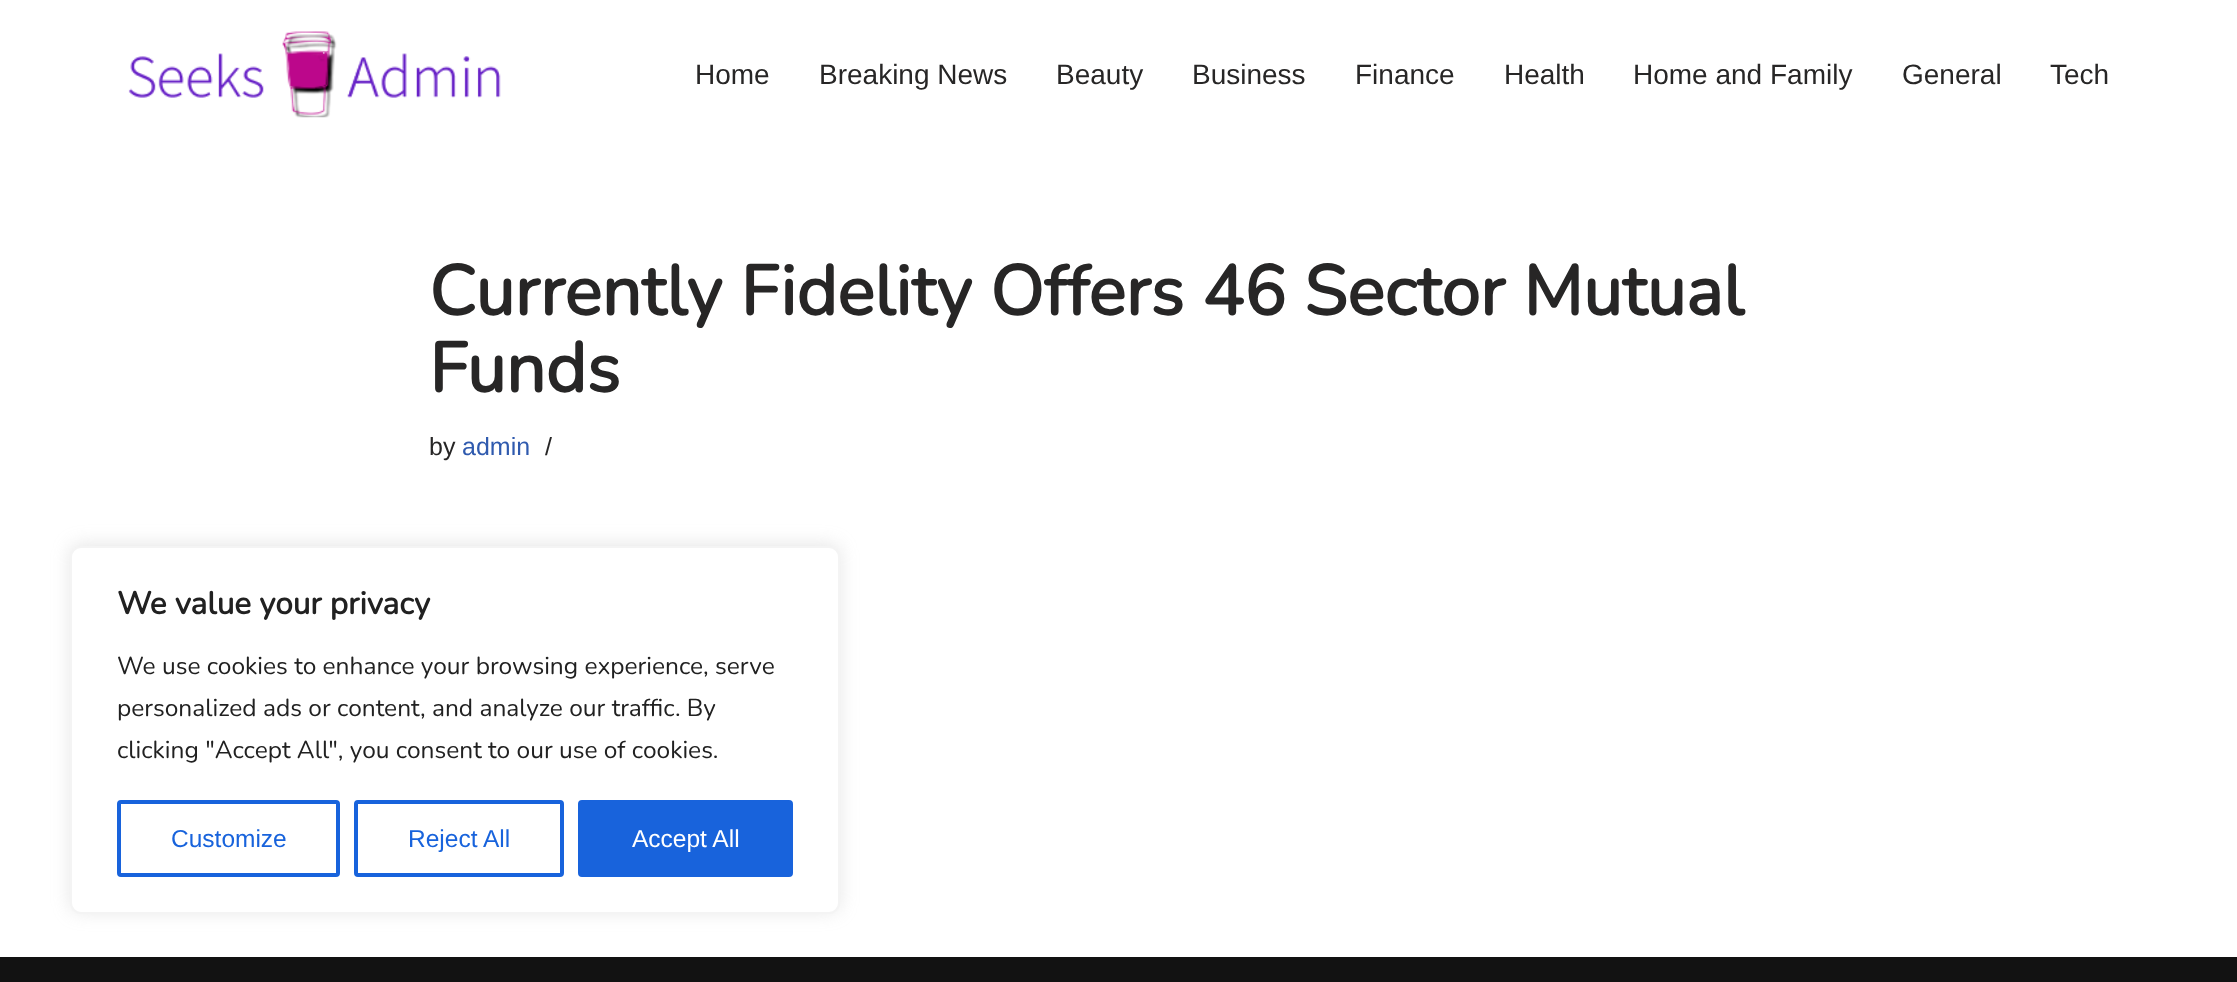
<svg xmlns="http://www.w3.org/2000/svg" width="2237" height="982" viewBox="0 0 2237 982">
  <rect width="100%" height="100%" fill="rgb(255,255,255)"/>
  <image x="128" y="31" width="373" height="87" href="pic1.png"/>
  <g font-family="Liberation Sans" font-size="28" fill="rgb(39,38,38)">
    <text x="695" y="84">Home</text>
    <text x="819" y="84">Breaking News</text>
    <text x="1056" y="84">Beauty</text>
    <text x="1192" y="84">Business</text>
    <text x="1355" y="84">Finance</text>
    <text x="1504" y="84">Health</text>
    <text x="1633" y="84">Home and Family</text>
    <text x="1902" y="84">General</text>
    <text x="2050" y="84">Tech</text>
  </g>
  <g font-family="Nunito" font-size="70" font-weight="bold" fill="rgb(39,38,38)">
    <text>
      <tspan x="429" y="315">Currently Fidelity Offers 46 Sector Mutual</tspan>
      <tspan x="429" y="392">Funds</tspan>
    </text>
  </g>
  <text x="429" y="455" font-family="Liberation Sans" font-size="25" fill="rgb(39,38,38)">by</text>
  <text x="462" y="455" font-family="Liberation Sans" font-size="25" fill="rgb(47,90,174)">admin</text>
  <text x="545" y="455" font-family="Liberation Sans" font-size="25" fill="rgb(39,38,38)">/</text>
  <rect x="0" y="957" width="2237" height="25" fill="rgb(18,18,18)"/>
  <rect x="70" y="544" width="770" height="368" rx="11" fill="rgba(172,171,171,0.3)" filter="blur(9px)"/>
  <rect x="71" y="547" width="768" height="366" rx="10" fill="rgb(255,255,255)" stroke="rgb(244,244,244)" stroke-width="2"/>
  <text x="117" y="614" font-family="Nunito" font-size="31.5" font-weight="bold" fill="rgb(33,33,33)">We value your privacy</text>
  <g font-family="Nunito" font-size="24.5" font-weight="200" fill="rgb(33,33,33)">
    <text>
      <tspan x="117" y="674">We use cookies to enhance your browsing experience, serve</tspan>
      <tspan x="117" y="716">personalized ads or content, and analyze our traffic. By</tspan>
      <tspan x="117" y="758">clicking "Accept All", you consent to our use of cookies.</tspan>
    </text>
  </g>
  <rect x="119" y="802" width="219" height="73" rx="2" fill="none" stroke="rgb(24,99,220)" stroke-width="4"/>
  <text x="171" y="847" font-family="Liberation Sans" font-size="24.5" fill="rgb(24,99,220)">Customize</text>
  <rect x="356" y="802" width="206" height="73" rx="2" fill="none" stroke="rgb(24,99,220)" stroke-width="4"/>
  <text x="408" y="847" font-family="Liberation Sans" font-size="24.5" fill="rgb(24,99,220)">Reject All</text>
  <rect x="580" y="802" width="211" height="73" rx="2" fill="rgb(24,99,220)" stroke="rgb(24,99,220)" stroke-width="4"/>
  <text x="632" y="847" font-family="Liberation Sans" font-size="24.5" fill="rgb(255,255,255)">Accept All</text>
</svg>
